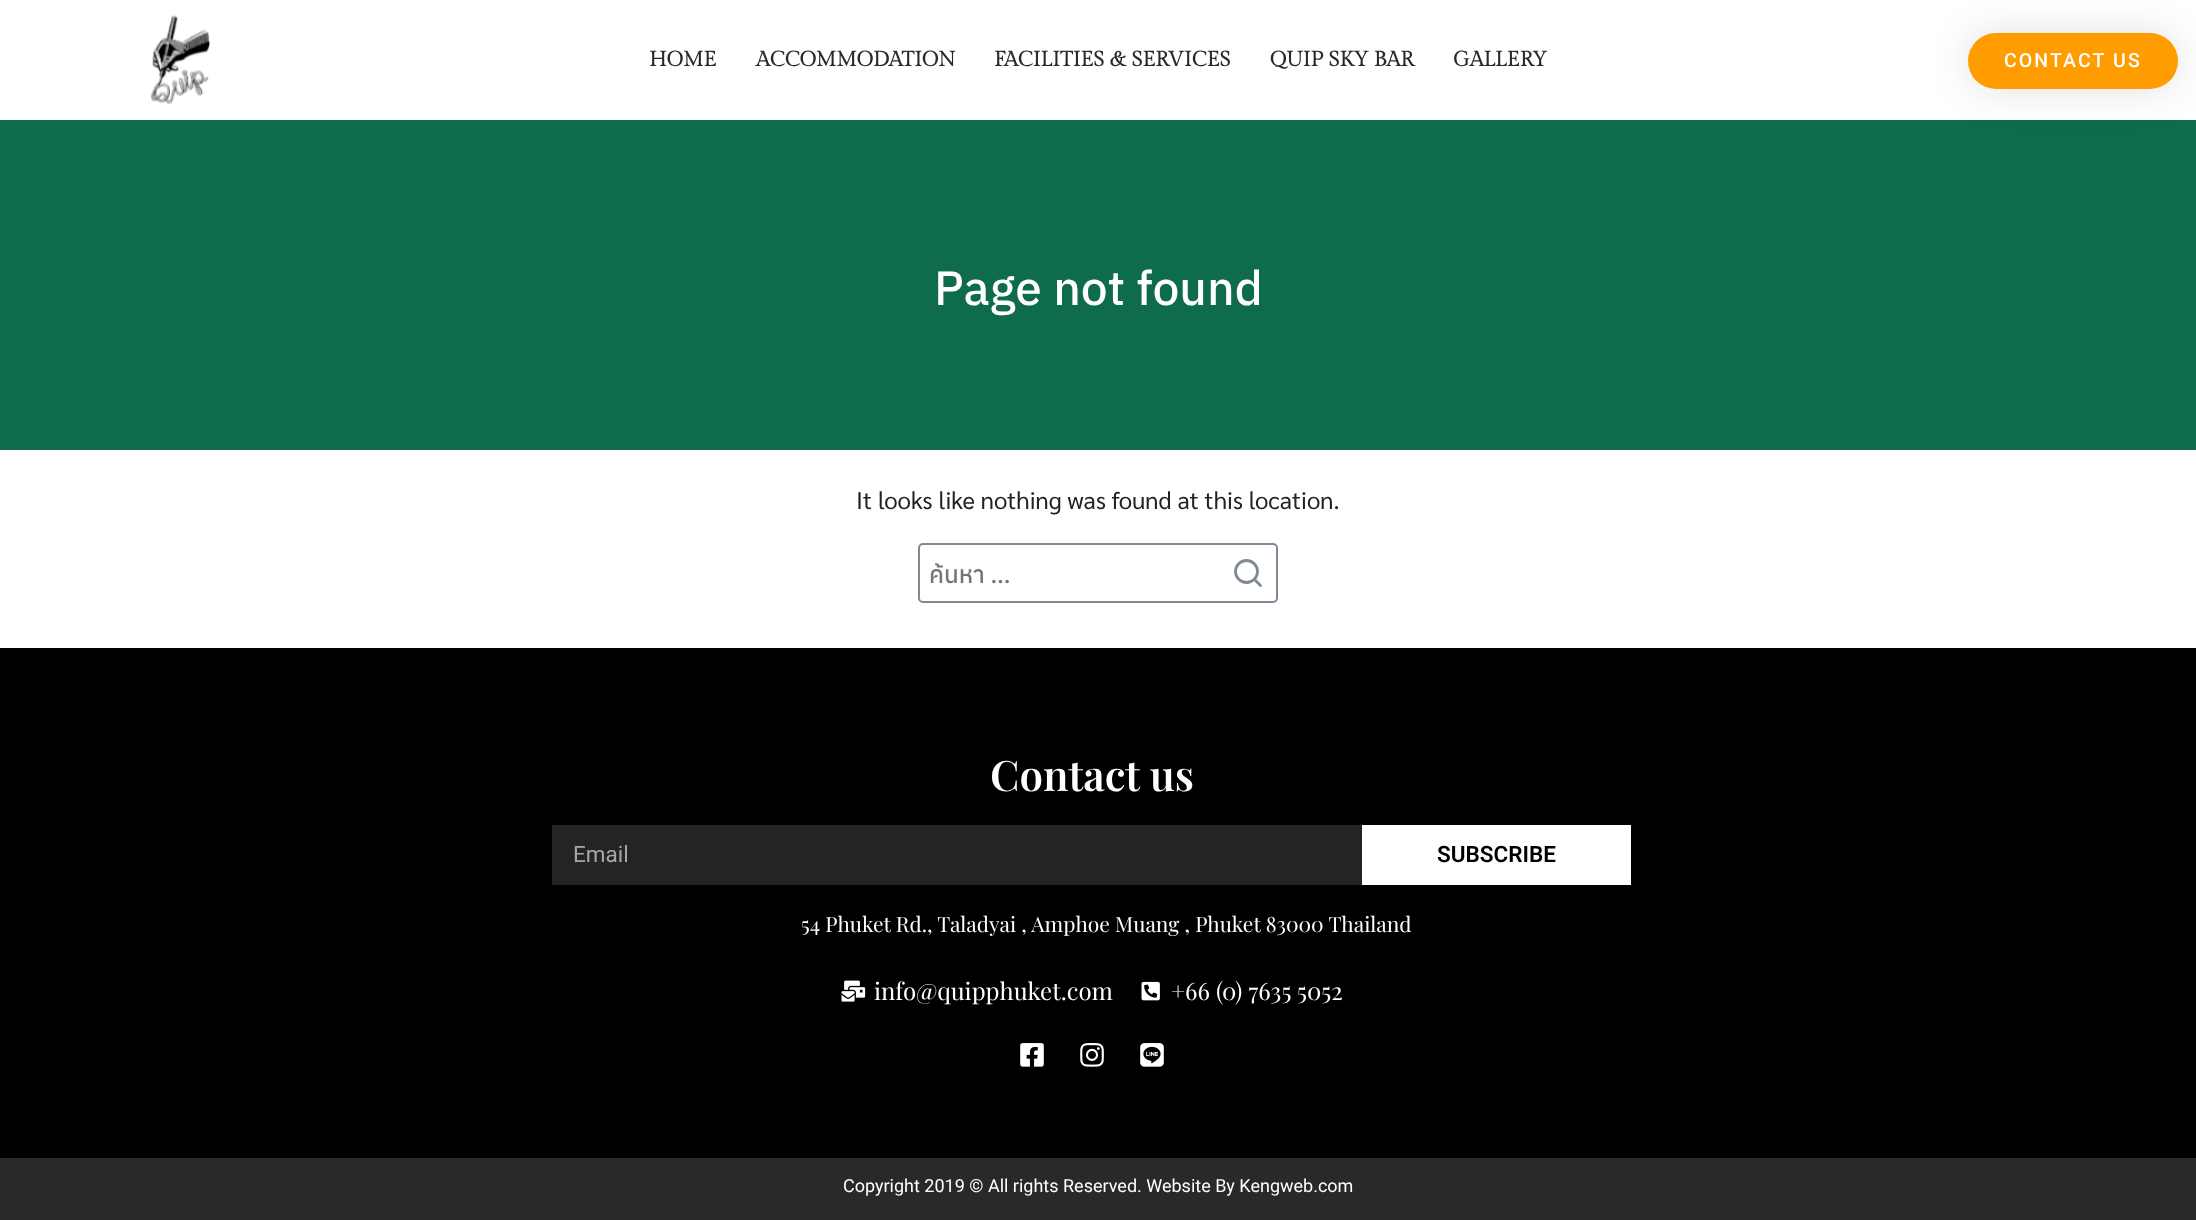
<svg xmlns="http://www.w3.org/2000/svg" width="2196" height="1220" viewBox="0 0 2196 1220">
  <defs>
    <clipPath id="clip1"><rect x="929" y="557" width="333" height="34"/></clipPath>
  </defs>
  <rect width="100%" height="100%" fill="rgb(255,255,255)"/>
  <image x="151" y="15" width="59" height="90" href="pic1.png"/>
  <g font-family="Gilda Display" font-size="21" font-weight="bold" fill="rgb(41,41,41)">
    <text x="649" y="66">HOME</text>
    <text x="756" y="66">ACCOMMODATION</text>
    <text x="994" y="66">FACILITIES &amp; SERVICES</text>
    <text x="1270" y="66">QUIP SKY BAR</text>
    <text x="1453" y="66">GALLERY</text>
  </g>
  <rect x="0" y="120" width="2196" height="330" fill="rgb(15,107,78)"/>
  <rect x="1968" y="33" width="210" height="56" rx="28" fill="rgba(0,0,0,0.12)" filter="blur(20px)"/>
  <rect x="1968" y="33" width="210" height="56" rx="28" fill="rgb(255,156,0)"/>
  <text x="2004" y="67" font-family="Roboto" font-size="19.5" font-weight="500" letter-spacing="2.1" fill="rgb(255,255,255)">CONTACT US</text>
  <text x="934" y="305" font-family="Anuphan" font-size="48" font-weight="500" fill="rgb(255,255,255)">Page not found</text>
  <text x="856" y="509" font-family="Sarabun" font-size="24" fill="rgb(34,34,34)">It looks like nothing was found at this location.</text>
  <rect x="919" y="544" width="358" height="58" rx="4" fill="none" stroke="rgb(126,137,147)" stroke-width="2"/>
  <g clip-path="url(#clip1)">
    <text x="929" y="583" font-family="Anuphan" font-size="24" font-weight="500" fill="rgb(117,117,117)">ค้นหา …</text>
  </g>
  <circle cx="1246.5" cy="571.5" r="11" fill="none" stroke="rgb(126,137,147)" stroke-width="2.8"/>
  <path d="M1260.5 585.5L1254.5 579.5" fill="none" stroke="rgb(126,137,147)" stroke-width="2.8" stroke-linecap="round" stroke-linejoin="round"/>
  <rect x="0" y="648" width="2196" height="510" fill="rgb(0,0,0)"/>
  <text x="990" y="791" font-family="Playfair Display" font-size="42" font-weight="600" fill="rgb(255,255,255)">Contact us</text>
  <rect x="552" y="825" width="810" height="60" fill="rgb(36,36,36)"/>
  <text x="573" y="862" font-family="Roboto" font-size="22.5" fill="rgb(167,167,167)">Email</text>
  <rect x="1362" y="825" width="269" height="60" fill="rgb(255,255,255)"/>
  <text x="1437" y="862" font-family="Roboto" font-size="22.5" font-weight="600" fill="rgb(0,0,0)">SUBSCRIBE</text>
  <text x="801" y="932" font-family="Playfair Display" font-size="21" fill="rgb(255,255,255)">54 Phuket Rd., Taladyai , Amphoe Muang , Phuket 83000 Thailand</text>
  <image x="841" y="980" width="25" height="22" href="pic2.png"/>
  <text x="874" y="1000" font-family="Playfair Display" font-size="24" fill="rgb(255,255,255)">info@quipphuket.com</text>
  <image x="1141" y="981" width="19" height="20" href="pic3.png"/>
  <text x="1171" y="1000" font-family="Playfair Display" font-size="24" fill="rgb(255,255,255)">+66 (0) 7635 5052</text>
  <image x="1020" y="1043" width="24" height="24" href="pic4.png"/>
  <image x="1080" y="1043" width="24" height="24" href="pic5.png"/>
  <image x="1140" y="1043" width="24" height="24" href="pic6.png"/>
  <rect x="0" y="1158" width="2196" height="62" fill="rgb(41,41,41)"/>
  <text x="843" y="1192" font-family="Roboto" font-size="18" fill="rgb(255,255,255)">Copyright 2019 © All rights Reserved. Website By Kengweb.com</text>
</svg>
